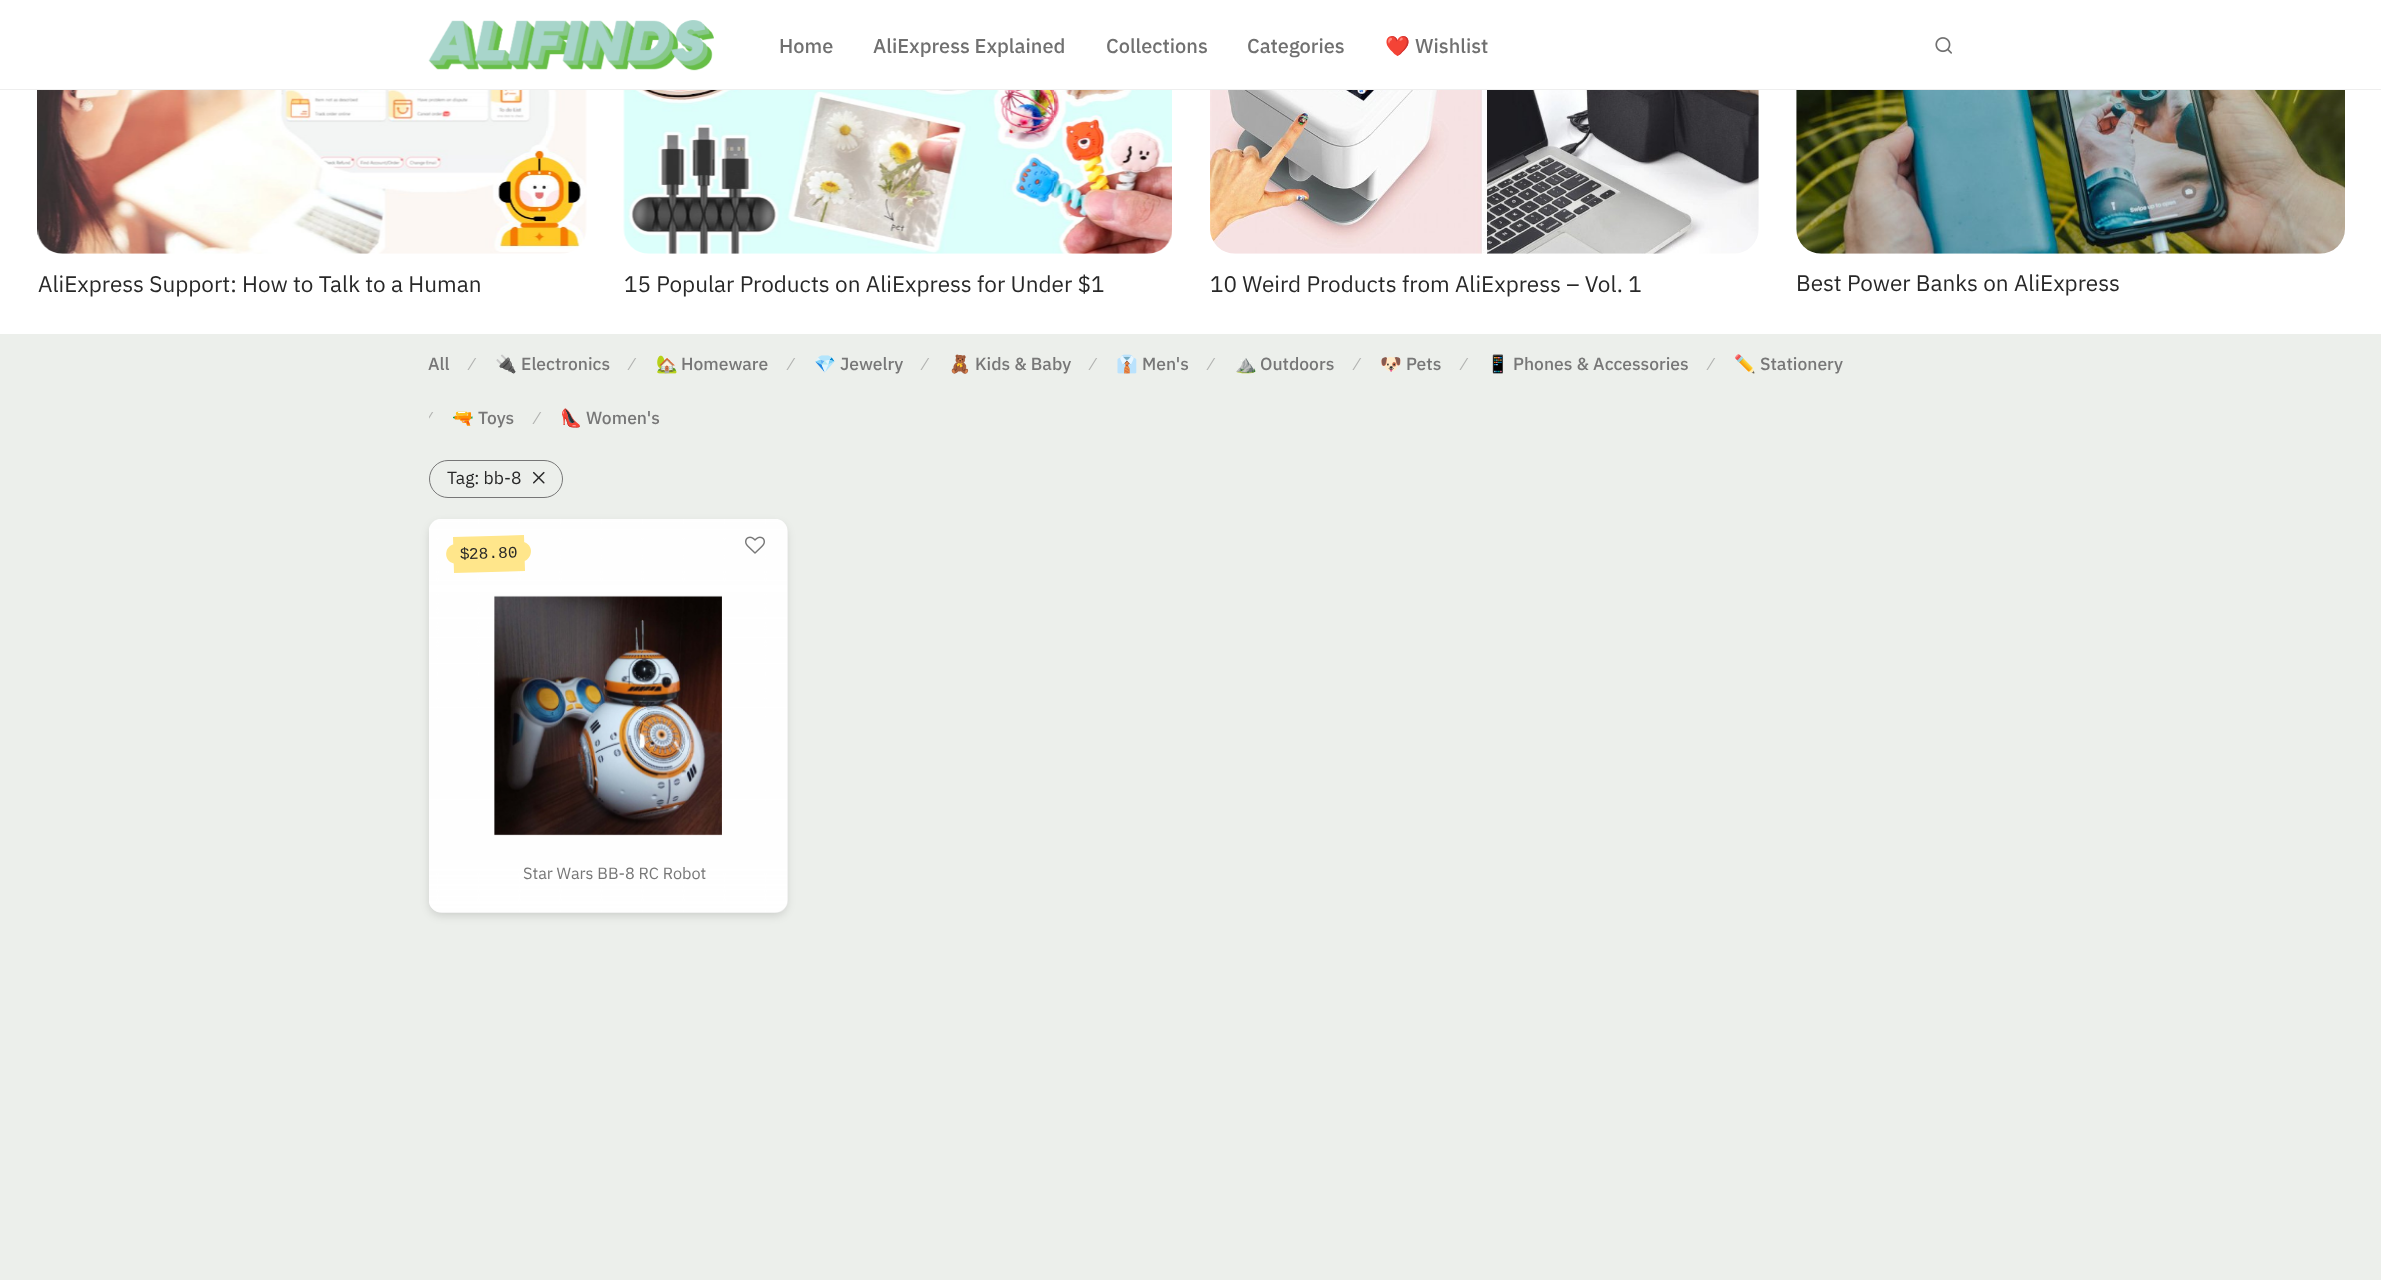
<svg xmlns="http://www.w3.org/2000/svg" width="2381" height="1280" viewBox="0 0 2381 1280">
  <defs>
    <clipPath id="clip1"><rect x="429" y="346" width="1525" height="89"/></clipPath>
  </defs>
  <rect width="100%" height="100%" fill="rgb(255,255,255)"/>
  <rect x="0" y="89" width="2381" height="1" fill="rgb(238,238,238)"/>
  <image x="428" y="20" width="286" height="51" href="pic1.png"/>
  <g font-family="IBM Plex Sans" font-size="20" font-weight="500" fill="rgb(112,112,112)">
    <text x="779" y="53">Home</text>
    <text x="873" y="53">AliExpress Explained</text>
    <text x="1106" y="53">Collections</text>
    <text x="1247" y="53">Categories</text>
  </g>
  <text x="1385" y="53" font-family="Noto Color Emoji" font-size="20" fill="rgb(112,112,112)">❤️</text>
  <text x="1415" y="53" font-family="IBM Plex Sans" font-size="20" font-weight="500" fill="rgb(112,112,112)">Wishlist</text>
  <image x="1935" y="37" width="17" height="17" href="pic2.png"/>
  <image x="37" y="90" width="550" height="164" href="pic3.png"/>
  <text x="38" y="292" font-family="IBM Plex Sans" font-size="22.5" fill="rgb(40,40,40)">AliExpress Support: How to Talk to a Human</text>
  <image x="623" y="90" width="549" height="164" href="pic4.png"/>
  <text x="624" y="292" font-family="IBM Plex Sans" font-size="22.5" fill="rgb(40,40,40)">15 Popular Products on AliExpress for Under $1</text>
  <image x="1210" y="90" width="549" height="164" href="pic5.png"/>
  <text x="1210" y="292" font-family="IBM Plex Sans" font-size="22.5" fill="rgb(40,40,40)">10 Weird Products from AliExpress – Vol. 1</text>
  <image x="1796" y="90" width="549" height="164" href="pic6.png"/>
  <text x="1796" y="291" font-family="IBM Plex Sans" font-size="22.5" fill="rgb(40,40,40)">Best Power Banks on AliExpress</text>
  <rect x="0" y="334" width="2381" height="946" fill="rgb(236,239,235)"/>
  <text x="428" y="370" font-family="IBM Plex Sans" font-size="17.5" font-weight="500" fill="rgb(119,119,119)">All</text>
  <text x="471" y="370" font-family="Liberation Sans" font-size="17.5" fill="rgb(178,179,177)">⁄</text>
  <text x="495" y="370" font-family="Noto Color Emoji" font-size="17.5" fill="rgb(119,119,119)">🔌</text>
  <text x="521" y="370" font-family="IBM Plex Sans" font-size="17.5" font-weight="500" fill="rgb(119,119,119)">Electronics</text>
  <text x="631" y="370" font-family="Liberation Sans" font-size="17.5" fill="rgb(178,179,177)">⁄</text>
  <text x="656" y="370" font-family="Noto Color Emoji" font-size="17.5" fill="rgb(119,119,119)">🏡</text>
  <text x="681" y="370" font-family="IBM Plex Sans" font-size="17.5" font-weight="500" fill="rgb(119,119,119)">Homeware</text>
  <text x="790" y="370" font-family="Liberation Sans" font-size="17.5" fill="rgb(178,179,177)">⁄</text>
  <text x="814" y="370" font-family="Noto Color Emoji" font-size="17.5" fill="rgb(119,119,119)">💎</text>
  <text x="840" y="370" font-family="IBM Plex Sans" font-size="17.5" font-weight="500" fill="rgb(119,119,119)">Jewelry</text>
  <text x="924" y="370" font-family="Liberation Sans" font-size="17.5" fill="rgb(178,179,177)">⁄</text>
  <text x="949" y="370" font-family="Noto Color Emoji" font-size="17.5" fill="rgb(119,119,119)">🧸</text>
  <text x="975" y="370" font-family="IBM Plex Sans" font-size="17.5" font-weight="500" fill="rgb(119,119,119)">Kids &amp; Baby</text>
  <text x="1092" y="370" font-family="Liberation Sans" font-size="17.5" fill="rgb(178,179,177)">⁄</text>
  <text x="1116" y="370" font-family="Noto Color Emoji" font-size="17.5" fill="rgb(119,119,119)">👔</text>
  <text x="1142" y="370" font-family="IBM Plex Sans" font-size="17.5" font-weight="500" fill="rgb(119,119,119)">Men's</text>
  <text x="1210" y="370" font-family="Liberation Sans" font-size="17.5" fill="rgb(178,179,177)">⁄</text>
  <text x="1235" y="370" font-family="Noto Color Emoji" font-size="17.5" fill="rgb(119,119,119)">⛰️</text>
  <text x="1260" y="370" font-family="IBM Plex Sans" font-size="17.5" font-weight="500" fill="rgb(119,119,119)">Outdoors</text>
  <text x="1356" y="370" font-family="Liberation Sans" font-size="17.5" fill="rgb(178,179,177)">⁄</text>
  <text x="1380" y="370" font-family="Noto Color Emoji" font-size="17.5" fill="rgb(119,119,119)">🐶</text>
  <text x="1406" y="370" font-family="IBM Plex Sans" font-size="17.5" font-weight="500" fill="rgb(119,119,119)">Pets</text>
  <text x="1463" y="370" font-family="Liberation Sans" font-size="17.5" fill="rgb(178,179,177)">⁄</text>
  <text x="1487" y="370" font-family="Noto Color Emoji" font-size="17.5" fill="rgb(119,119,119)">📱</text>
  <text x="1513" y="370" font-family="IBM Plex Sans" font-size="17.5" font-weight="500" fill="rgb(119,119,119)">Phones &amp; Accessories</text>
  <text x="1710" y="370" font-family="Liberation Sans" font-size="17.5" fill="rgb(178,179,177)">⁄</text>
  <text x="1734" y="370" font-family="Noto Color Emoji" font-size="17.5" fill="rgb(119,119,119)">✏️</text>
  <text x="1760" y="370" font-family="IBM Plex Sans" font-size="17.5" font-weight="500" fill="rgb(119,119,119)">Stationery</text>
  <g clip-path="url(#clip1)">
    <text x="428" y="424" font-family="Liberation Sans" font-size="17.5" fill="rgb(178,179,177)">⁄</text>
  </g>
  <text x="452" y="424" font-family="Noto Color Emoji" font-size="17.5" fill="rgb(119,119,119)">🔫</text>
  <text x="478" y="424" font-family="IBM Plex Sans" font-size="17.5" font-weight="500" fill="rgb(119,119,119)">Toys</text>
  <text x="536" y="424" font-family="Liberation Sans" font-size="17.5" fill="rgb(178,179,177)">⁄</text>
  <text x="560" y="424" font-family="Noto Color Emoji" font-size="17.5" fill="rgb(119,119,119)">👠</text>
  <text x="586" y="424" font-family="IBM Plex Sans" font-size="17.5" font-weight="500" fill="rgb(119,119,119)">Women's</text>
  <rect x="429.5" y="460.5" width="133" height="37" rx="18.5" fill="none" stroke="rgb(119,119,119)"/>
  <text x="447" y="484" font-family="IBM Plex Sans" font-size="17.5" fill="rgb(40,40,40)">Tag: bb-8</text>
  <image x="533" y="471" width="12" height="13" href="pic7.png"/>
  <rect x="430" y="524" width="356" height="391" rx="11" fill="rgba(0,0,0,0.15)" filter="blur(5px)"/>
  <rect x="429" y="519" width="359" height="394" rx="13" fill="rgb(238,238,238)"/>
  <image x="429" y="519" width="359" height="394" href="pic8.png"/>
  <path d="M453 537L524 535L525 571L454 573Z" fill="rgb(255,230,139)"/>
  <path d="M456 544L466 543.5L466.5 563.5C462.5 563.5 456.5 564.5 452.5 563C442.5 559.5 445 544 456 544Z" fill="rgb(255,230,139)"/>
  <path d="M510.5 542L520.5 541.5C526 541.5 531 545.5 531 551C531 556.5 527 561.5 521.5 561.5L511.5 562Z" fill="rgb(255,230,139)"/>
  <g font-family="Liberation Mono" font-size="16.25" fill="rgb(40,40,40)">
    <text x="469" y="559" transform="rotate(-2 469 559)">28.80</text>
    <text x="460" y="559" transform="rotate(-2 460 559)">$</text>
  </g>
  <text x="523" y="879" font-family="IBM Plex Sans" font-size="16.25" fill="rgb(119,119,119)">Star Wars BB-8 RC Robot</text>
  <image x="745" y="536" width="20" height="18" href="pic9.png"/>
</svg>
